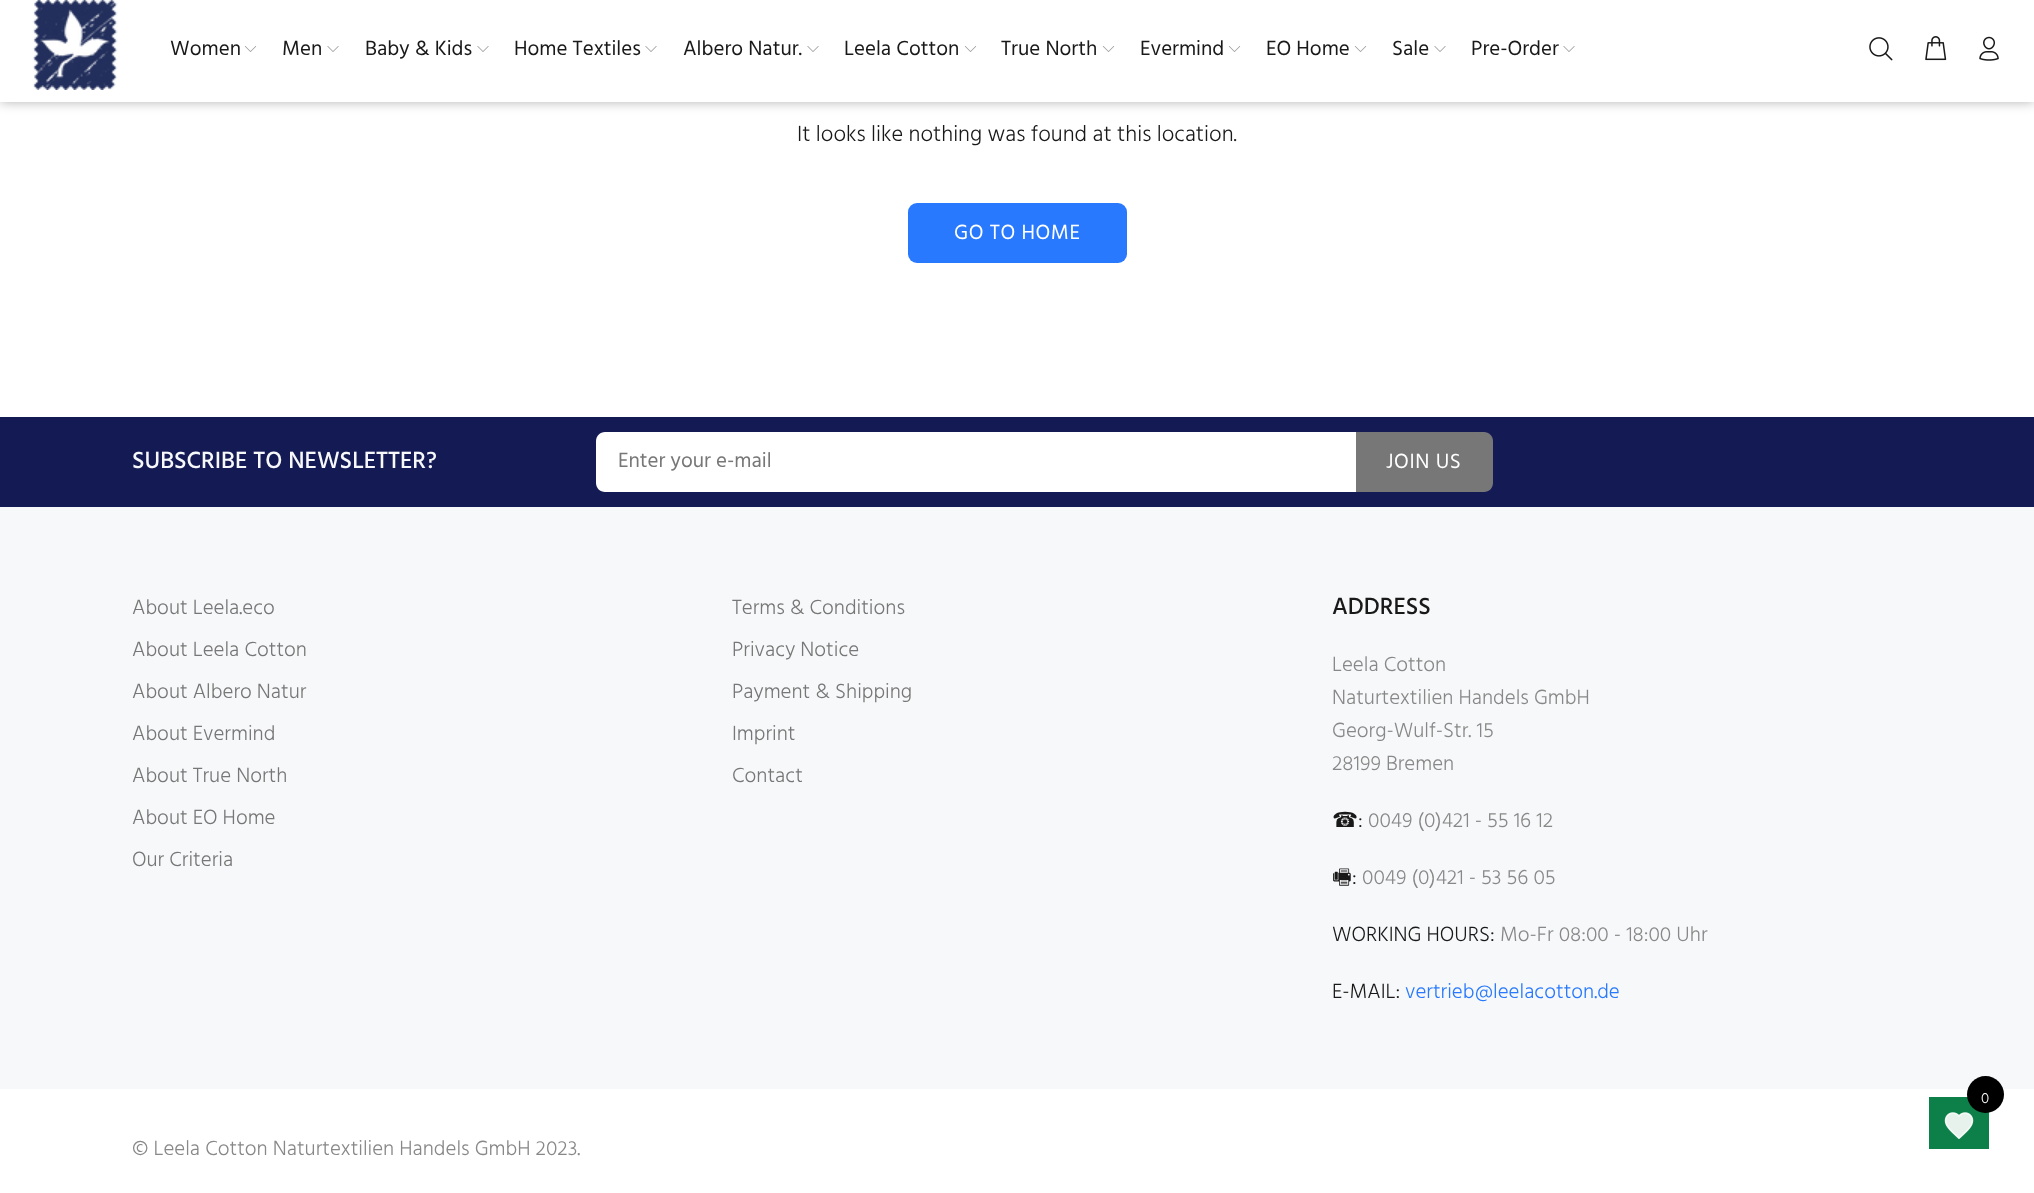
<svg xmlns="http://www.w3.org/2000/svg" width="2034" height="1193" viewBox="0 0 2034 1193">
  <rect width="100%" height="100%" fill="rgb(255,255,255)"/>
  <rect x="0" y="0" width="2034" height="102" fill="rgba(0,0,0,0.3)" filter="blur(6px)"/>
  <rect x="0" y="0" width="2034" height="102" fill="rgb(255,255,255)"/>
  <image x="32" y="0" width="86" height="90" href="pic1.png"/>
  <text x="170" y="55" font-family="Hind" font-size="21" fill="rgb(25,25,25)">Women</text>
  <image x="244" y="46" width="13" height="6" href="pic2.png"/>
  <text x="282" y="55" font-family="Hind" font-size="21" fill="rgb(25,25,25)">Men</text>
  <image x="327" y="46" width="12" height="6" href="pic3.png"/>
  <text x="365" y="55" font-family="Hind" font-size="21" fill="rgb(25,25,25)">Baby &amp; Kids</text>
  <image x="477" y="46" width="12" height="6" href="pic3.png"/>
  <text x="514" y="55" font-family="Hind" font-size="21" fill="rgb(25,25,25)">Home Textiles</text>
  <image x="645" y="46" width="12" height="6" href="pic3.png"/>
  <text x="683" y="55" font-family="Hind" font-size="21" fill="rgb(25,25,25)">Albero Natur.</text>
  <image x="807" y="46" width="12" height="6" href="pic3.png"/>
  <text x="844" y="55" font-family="Hind" font-size="21" fill="rgb(25,25,25)">Leela Cotton</text>
  <image x="964" y="46" width="13" height="6" href="pic2.png"/>
  <text x="1001" y="55" font-family="Hind" font-size="21" fill="rgb(25,25,25)">True North</text>
  <image x="1102" y="46" width="13" height="6" href="pic2.png"/>
  <text x="1140" y="55" font-family="Hind" font-size="21" fill="rgb(25,25,25)">Evermind</text>
  <image x="1228" y="46" width="13" height="6" href="pic2.png"/>
  <text x="1266" y="55" font-family="Hind" font-size="21" fill="rgb(25,25,25)">EO Home</text>
  <image x="1354" y="46" width="13" height="6" href="pic2.png"/>
  <text x="1392" y="55" font-family="Hind" font-size="21" fill="rgb(25,25,25)">Sale</text>
  <image x="1434" y="46" width="12" height="6" href="pic3.png"/>
  <text x="1471" y="55" font-family="Hind" font-size="21" fill="rgb(25,25,25)">Pre-Order</text>
  <image x="1563" y="46" width="12" height="6" href="pic3.png"/>
  <image x="1869" y="37" width="24" height="24" href="pic4.png"/>
  <image x="1925" y="36" width="22" height="25" href="pic5.png"/>
  <image x="1979" y="36" width="20" height="25" href="pic6.png"/>
  <text x="797" y="141" font-family="Hind" font-size="22.5" font-weight="300" fill="rgb(25,25,25)">It looks like nothing was found at this location.</text>
  <rect x="908" y="203" width="219" height="60" rx="9" fill="rgb(40,121,254)"/>
  <text x="954" y="239" font-family="Hind" font-size="21" letter-spacing="0.6" fill="rgb(255,255,255)">GO TO HOME</text>
  <rect x="0" y="507" width="2034" height="582" fill="rgb(247,248,250)"/>
  <rect x="0" y="417" width="2034" height="90" fill="rgb(20,27,84)"/>
  <text x="132" y="468" font-family="Hind" font-size="24" font-weight="500" fill="rgb(247,248,250)">SUBSCRIBE TO NEWSLETTER?</text>
  <path d="M605 432H1356V492H605C600 492 596 488 596 483V441C596 436 600 432 605 432Z" fill="rgb(255,255,255)"/>
  <text x="618" y="467" font-family="Hind" font-size="21" fill="rgb(119,119,119)">Enter your e-mail</text>
  <path d="M1356 432H1484C1489 432 1493 436 1493 441V483C1493 488 1489 492 1484 492H1356Z" fill="rgb(119,119,119)"/>
  <text x="1386" y="468" font-family="Hind" font-size="21" letter-spacing="0.6" fill="rgb(255,255,255)">JOIN US</text>
  <g font-family="Hind" font-size="21" font-weight="300" fill="rgb(119,119,119)">
    <text x="132" y="614">About Leela.eco</text>
    <text x="132" y="656">About Leela Cotton</text>
    <text x="132" y="698">About Albero Natur</text>
    <text x="132" y="740">About Evermind</text>
    <text x="132" y="782">About True North</text>
    <text x="132" y="824">About EO Home</text>
    <text x="132" y="866">Our Criteria</text>
    <text x="732" y="614">Terms &amp; Conditions</text>
    <text x="732" y="656">Privacy Notice</text>
    <text x="732" y="698">Payment &amp; Shipping</text>
    <text x="732" y="740">Imprint</text>
    <text x="732" y="782">Contact</text>
  </g>
  <text x="1332" y="614" font-family="Hind" font-size="24" font-weight="500" fill="rgb(25,25,25)">ADDRESS</text>
  <g font-family="Hind" font-size="21" font-weight="300" fill="rgb(136,136,136)">
    <text>
      <tspan x="1332" y="671">Leela Cotton</tspan>
      <tspan x="1332" y="704">Naturtextilien Handels GmbH</tspan>
      <tspan x="1332" y="737">Georg-Wulf-Str. 15</tspan>
      <tspan x="1332" y="770">28199 Bremen</tspan>
    </text>
  </g>
  <text x="1332" y="827" font-family="DejaVu Sans" font-size="21" fill="rgb(25,25,25)">☎</text>
  <text x="1358" y="827" font-family="Hind" font-size="21" font-weight="300" fill="rgb(25,25,25)">:</text>
  <text x="1368" y="827" font-family="Hind" font-size="21" font-weight="300" fill="rgb(136,136,136)">0049 (0)421 - 55 16 12</text>
  <text x="1332" y="884" font-family="'Noto Sans Symbols 2'" font-size="21" fill="rgb(25,25,25)">🖷</text>
  <text x="1352" y="884" font-family="Hind" font-size="21" font-weight="300" fill="rgb(25,25,25)">:</text>
  <text x="1362" y="884" font-family="Hind" font-size="21" font-weight="300" fill="rgb(136,136,136)">0049 (0)421 - 53 56 05</text>
  <text x="1332" y="941" font-family="Hind" font-size="21" font-weight="300" fill="rgb(25,25,25)">WORKING HOURS:</text>
  <text x="1500" y="941" font-family="Hind" font-size="21" font-weight="300" fill="rgb(136,136,136)">Mo-Fr 08:00 - 18:00 Uhr</text>
  <text x="1332" y="998" font-family="Hind" font-size="21" font-weight="300" fill="rgb(25,25,25)">E-MAIL:</text>
  <text x="1405" y="998" font-family="Hind" font-size="21" font-weight="300" fill="rgb(40,121,254)">vertrieb@leelacotton.de</text>
  <text x="132" y="1155" font-family="Hind" font-size="21" font-weight="300" fill="rgb(136,136,136)">© Leela Cotton Naturtextilien Handels GmbH 2023.</text>
  <rect x="1929" y="1097" width="60" height="52" fill="rgb(13,127,73)"/>
  <image x="1944" y="1112" width="30" height="27" href="pic7.png"/>
  <circle cx="1985.5" cy="1094.5" r="18.5" fill="rgb(0,0,0)"/>
  <text x="1981" y="1103" font-family="Hind" font-size="15" font-weight="300" fill="rgb(255,255,255)">0</text>
</svg>
